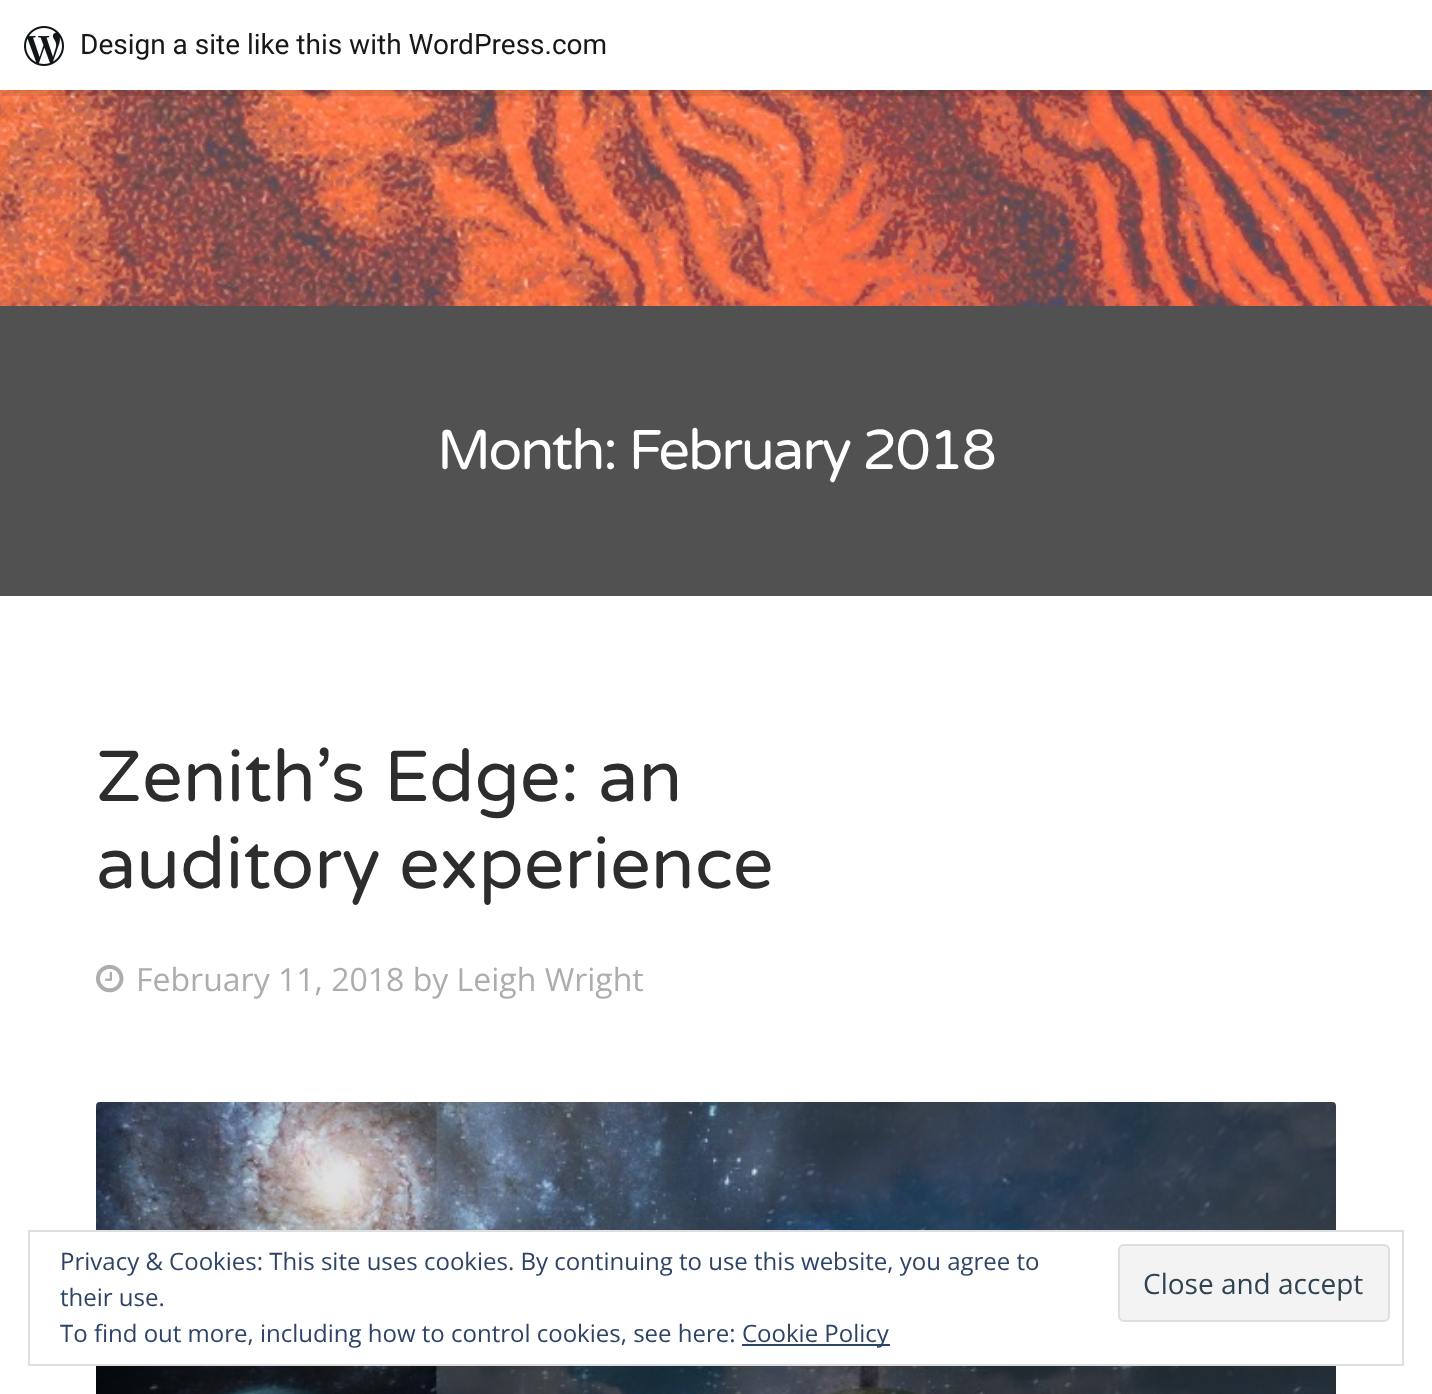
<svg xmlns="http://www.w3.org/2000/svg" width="1432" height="1394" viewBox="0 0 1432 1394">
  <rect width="100%" height="100%" fill="rgb(255,255,255)"/>
  <image x="0" y="90" width="1432" height="216" href="pic2.png"/>
  <rect x="0" y="2" width="1432" height="90" fill="rgba(0,0,0,0.05)" filter="blur(2px)"/>
  <path d="M2 90V96H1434V6H1432V90Z" fill="rgba(0,0,0,0.08)"/>
  <rect x="0" y="0" width="1432" height="90" fill="rgb(255,255,255)"/>
  <image x="24" y="26" width="40" height="40" href="pic1.png"/>
  <text x="80" y="54" font-family="Roboto" font-size="28" fill="rgb(23,23,23)">Design a site like this with WordPress.com</text>
  <rect x="0" y="306" width="1432" height="290" fill="rgb(81,81,81)"/>
  <text x="437" y="469" font-family="Varela Round" font-size="56" letter-spacing="-2" fill="rgb(255,255,255)">Month: February 2018</text>
  <g font-family="Varela Round" font-size="72" fill="rgb(45,45,45)">
    <text>
      <tspan x="96" y="801">Zenith’s Edge: an</tspan>
      <tspan x="96" y="888">auditory experience</tspan>
    </text>
  </g>
  <image x="96" y="964" width="28" height="29" href="pic3.png"/>
  <text x="136" y="991" font-family="Open Sans" font-size="32" fill="rgb(173,173,173)">February 11, 2018 by Leigh Wright</text>
  <image x="96" y="1102" width="1240" height="292" href="pic4.png"/>
  <rect x="96" y="1232" width="1240" height="132" fill="rgb(255,255,255)"/>
  <rect x="29" y="1231" width="1374" height="134" fill="none" stroke="rgb(222,222,222)" stroke-width="2"/>
  <g font-family="Open Sans" font-size="24" fill="rgb(46,68,103)">
    <text>
      <tspan x="60" y="1270">Privacy &amp; Cookies: This site uses cookies. By continuing to use this website, you agree to</tspan>
      <tspan x="60" y="1306">their use.</tspan>
    </text>
  </g>
  <rect x="1119" y="1245" width="270" height="76" rx="5" fill="rgb(243,243,243)" stroke="rgb(222,222,222)" stroke-width="2"/>
  <text x="1143" y="1294" font-family="Open Sans" font-size="28" fill="rgb(46,68,83)">Close and accept</text>
  <text x="60" y="1342" font-family="Open Sans" font-size="24" fill="rgb(46,68,103)">To find out more, including how to control cookies, see here:</text>
  <rect x="742" y="1344" width="148" height="2" fill="rgb(46,68,103)"/>
  <text x="742" y="1342" font-family="Open Sans" font-size="24" fill="rgb(46,68,103)">Cookie Policy</text>
</svg>
